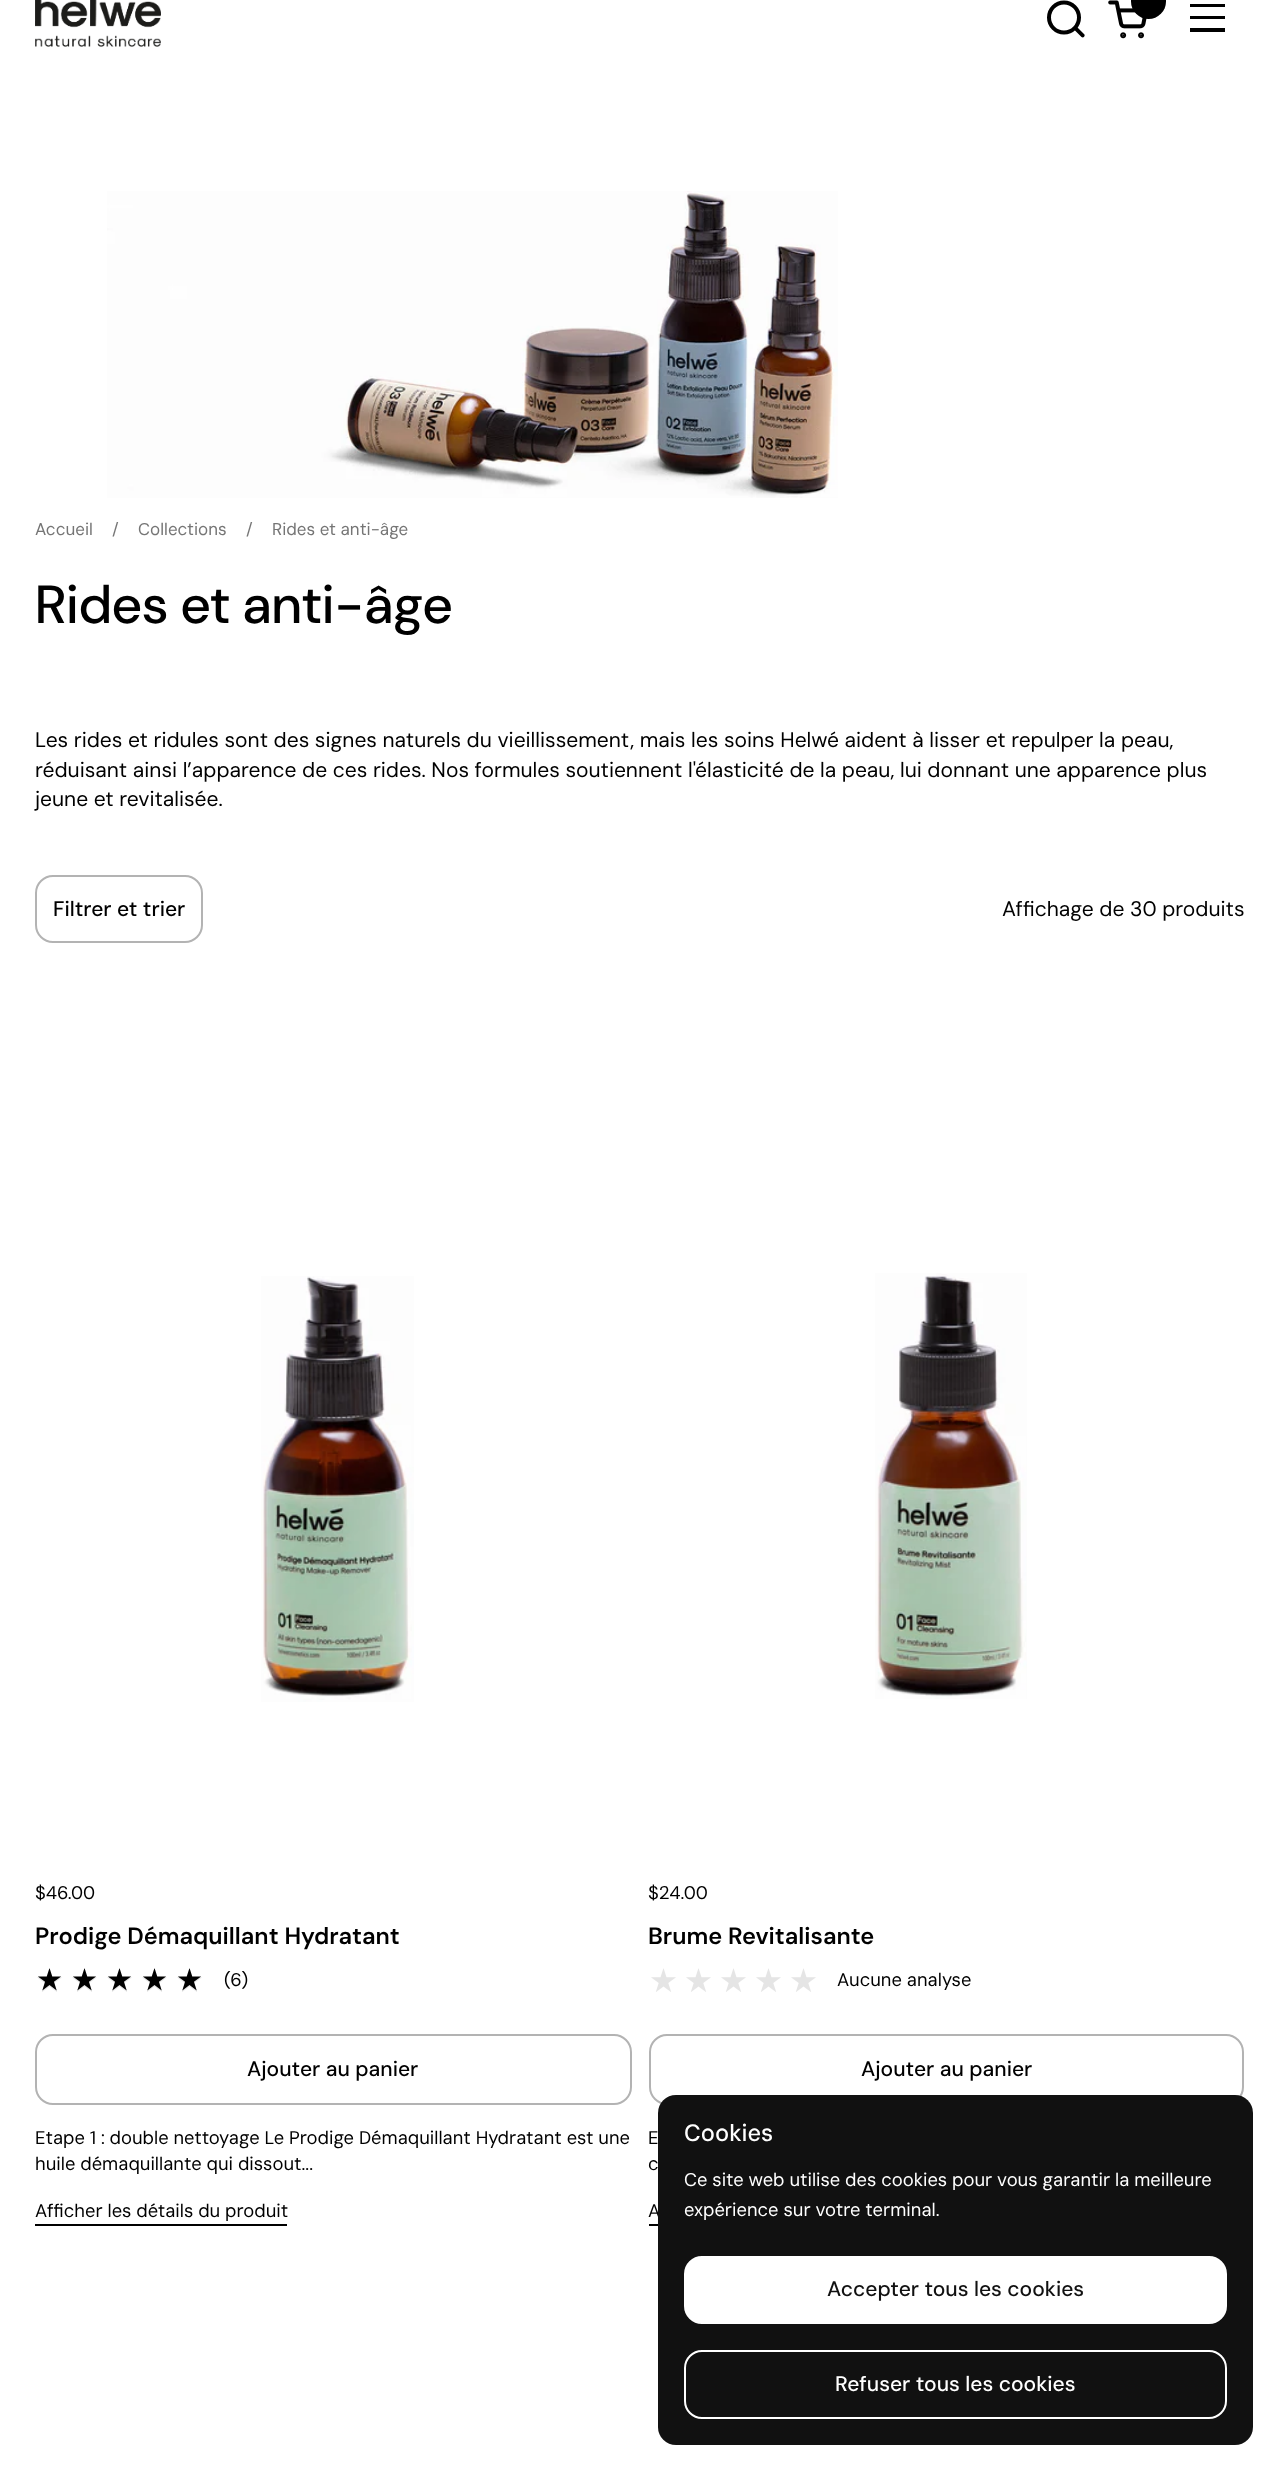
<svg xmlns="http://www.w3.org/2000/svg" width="1279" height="2470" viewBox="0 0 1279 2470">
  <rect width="100%" height="100%" fill="rgb(255,255,255)"/>
  <image x="35" y="0" width="126" height="47" href="pic1.png"/>
  <circle cx="1064" cy="17.5" r="15" fill="none" stroke="rgb(0,0,0)" stroke-width="4"/>
  <path d="M1077 27L1075.5 25.5L1073 28.5L1074 29.5ZM1081.5 37C1083 38.5 1086 36 1084 34ZM1074 29.5L1081.5 37L1084 34L1077 27Z" fill="rgb(0,0,0)"/>
  <circle cx="1148.5" cy="1.5" r="17.5" fill="rgb(0,0,0)"/>
  <image x="1108" y="0" width="39" height="39" href="pic2.png"/>
  <rect x="1190" y="4" width="35" height="3" fill="rgb(0,0,0)"/>
  <rect x="1190" y="16" width="35" height="3" fill="rgb(0,0,0)"/>
  <rect x="1190" y="28" width="35" height="4" fill="rgb(0,0,0)"/>
  <image x="107" y="191" width="731" height="307" href="pic3.png"/>
  <g font-family="'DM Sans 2'" font-size="17" fill="rgb(117,117,117)">
    <text x="35" y="535">Accueil</text>
    <text x="112" y="535">/</text>
    <text x="138" y="535">Collections</text>
    <text x="246" y="535">/</text>
    <text x="272" y="535">Rides et anti-âge</text>
  </g>
  <text x="35" y="623" font-family="'DM Sans 2'" font-size="53.75" font-weight="500" fill="rgb(0,0,0)">Rides et anti-âge</text>
  <g font-family="DM Sans" font-size="21" fill="rgb(0,0,0)">
    <text>
      <tspan x="35" y="747">Les rides et ridules sont des signes naturels du vieillissement, mais les soins Helwé aident à lisser et repulper la peau,</tspan>
      <tspan x="35" y="777">réduisant ainsi l’apparence de ces rides. Nos formules soutiennent l'élasticité de la peau, lui donnant une apparence plus</tspan>
      <tspan x="35" y="806">jeune et revitalisée.</tspan>
    </text>
  </g>
  <rect x="36" y="876" width="166" height="66" rx="17" fill="none" stroke="rgb(179,179,179)" stroke-width="2"/>
  <text x="53" y="916" font-family="DM Sans" font-size="21" font-weight="500" fill="rgb(0,0,0)">Filtrer et trier</text>
  <text x="1002" y="916" font-family="DM Sans" font-size="21" fill="rgb(0,0,0)">Affichage de 30 produits</text>
  <image x="261" y="1276" width="153" height="426" href="pic4.png"/>
  <text x="35" y="1899" font-family="'DM Sans 2'" font-size="18.4" fill="rgb(0,0,0)">$46.00</text>
  <text x="35" y="1944" font-family="DM Sans" font-size="23.6" font-weight="600" fill="rgb(0,0,0)">Prodige Démaquillant Hydratant</text>
  <image x="37" y="1968" width="165" height="24" href="pic5.png"/>
  <image x="38" y="1968" width="163" height="23" href="pic6.png"/>
  <text x="224" y="1986" font-family="'DM Sans 2'" font-size="18.4" fill="rgb(0,0,0)">(6)</text>
  <rect x="36" y="2035" width="595" height="69" rx="17" fill="none" stroke="rgb(179,179,179)" stroke-width="2"/>
  <text x="247" y="2076" font-family="DM Sans" font-size="21" font-weight="500" fill="rgb(0,0,0)">Ajouter au panier</text>
  <g font-family="'DM Sans 2'" font-size="18.4" fill="rgb(0,0,0)">
    <text>
      <tspan x="35" y="2144" word-spacing="-0.1">Etape 1 : double nettoyage Le Prodige Démaquillant Hydratant est une</tspan>
      <tspan x="35" y="2170">huile démaquillante qui dissout...</tspan>
    </text>
  </g>
  <rect x="35" y="2224" width="252" height="2" fill="rgb(0,0,0)"/>
  <text x="35" y="2217" word-spacing="-0.1" font-family="'DM Sans 2'" font-size="18.4" fill="rgb(0,0,0)">Afficher les détails du produit</text>
  <image x="875" y="1273" width="152" height="426" href="pic7.png"/>
  <text x="648" y="1899" font-family="'DM Sans 2'" font-size="18.4" fill="rgb(0,0,0)">$24.00</text>
  <text x="648" y="1944" font-family="DM Sans" font-size="23.6" font-weight="600" fill="rgb(0,0,0)">Brume Revitalisante</text>
  <image x="651" y="1968" width="165" height="24" href="pic5.png"/>
  <text x="837" y="1986" font-family="'DM Sans 2'" font-size="18.4" fill="rgb(0,0,0)">Aucune analyse</text>
  <rect x="650" y="2035" width="593" height="69" rx="17" fill="none" stroke="rgb(179,179,179)" stroke-width="2"/>
  <text x="861" y="2076" font-family="DM Sans" font-size="21" font-weight="500" fill="rgb(0,0,0)">Ajouter au panier</text>
  <g font-family="'DM Sans 2'" font-size="18.4" fill="rgb(0,0,0)">
    <text>
      <tspan x="648" y="2144" word-spacing="-0.1">E</tspan>
      <tspan x="648" y="2170">c</tspan>
    </text>
  </g>
  <rect x="649" y="2224" width="9" height="2" fill="rgb(0,0,0)"/>
  <text x="648" y="2217" word-spacing="-0.1" font-family="'DM Sans 2'" font-size="18.4" fill="rgb(0,0,0)">A</text>
  <rect x="658" y="2095" width="595" height="350" rx="18" fill="rgb(17,17,17)"/>
  <text x="684" y="2141" font-family="'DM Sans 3'" font-size="23.5" font-weight="500" fill="rgb(255,255,255)">Cookies</text>
  <g font-family="'DM Sans 2'" font-size="18.4" fill="rgb(255,255,255)">
    <text>
      <tspan x="684" y="2186" word-spacing="-0.1">Ce site web utilise des cookies pour vous garantir la meilleure</tspan>
      <tspan x="684" y="2216">expérience sur votre terminal.</tspan>
    </text>
  </g>
  <rect x="685" y="2257" width="541" height="66" rx="17" fill="rgb(255,255,255)" stroke="rgb(255,255,255)" stroke-width="2"/>
  <text x="827" y="2296" font-family="DM Sans" font-size="21" font-weight="500" fill="rgb(17,17,17)">Accepter tous les cookies</text>
  <rect x="685" y="2351" width="541" height="67" rx="17" fill="none" stroke="rgb(255,255,255)" stroke-width="2"/>
  <text x="835" y="2391" font-family="DM Sans" font-size="21" font-weight="500" fill="rgb(255,255,255)">Refuser tous les cookies</text>
</svg>
